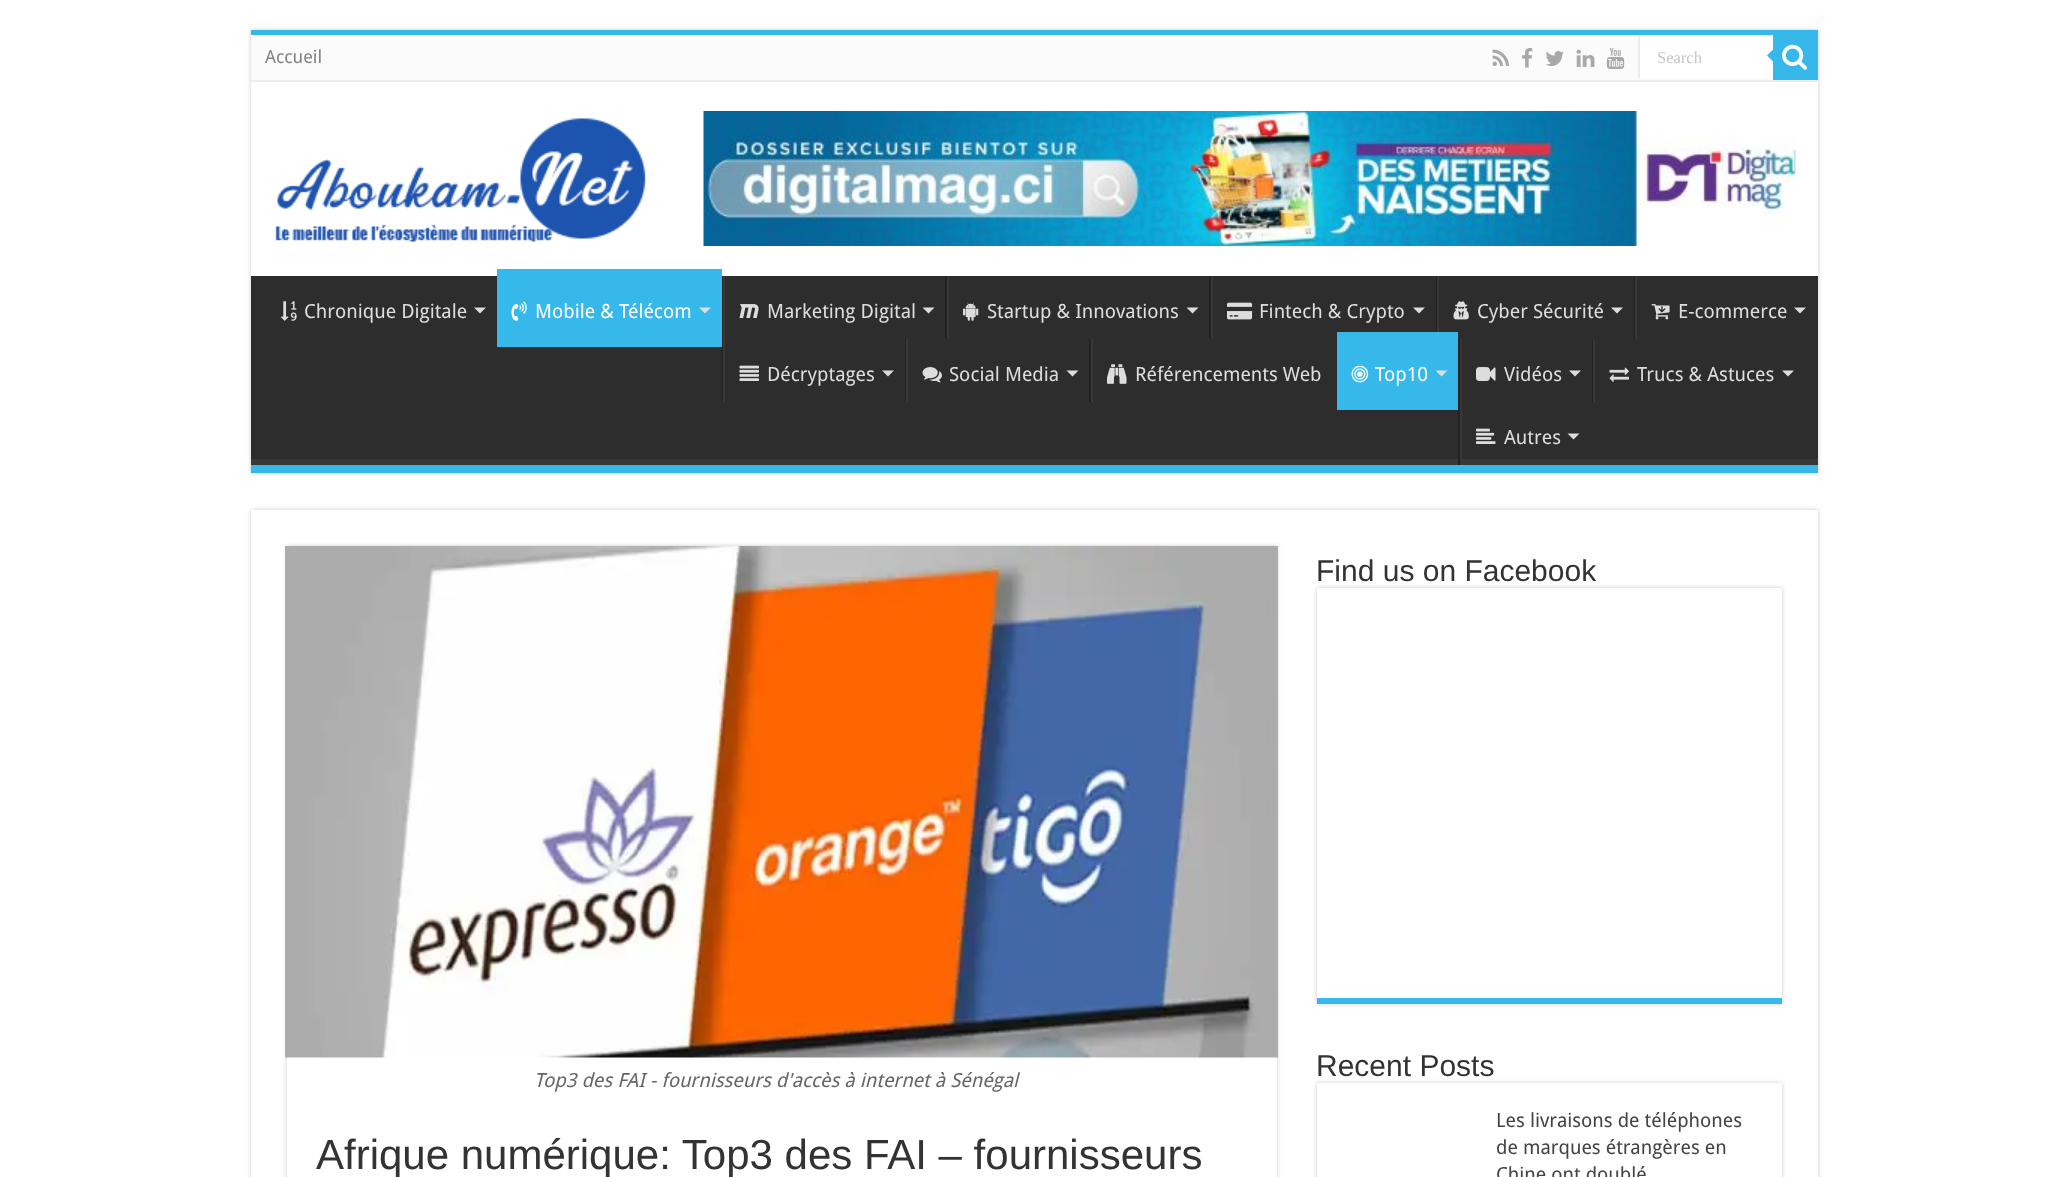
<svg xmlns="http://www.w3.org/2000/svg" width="2066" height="1177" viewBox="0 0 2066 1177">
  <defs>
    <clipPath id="clip1"><rect x="1658" y="48" width="97" height="18"/></clipPath>
    <clipPath id="clip2"><rect x="251" y="276" width="1567" height="189"/></clipPath>
    <clipPath id="clip3"><path d="M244 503H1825V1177H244ZM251 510H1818V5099H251Z" clip-rule="evenodd"/></clipPath>
    <clipPath id="clip4"><path d="M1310 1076H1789V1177H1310ZM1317 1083H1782V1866H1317Z" clip-rule="evenodd"/></clipPath>
  </defs>
  <rect width="100%" height="100%" fill="rgb(255,255,255)"/>
  <rect x="251" y="30" width="1567" height="443" fill="rgb(202,202,202)" filter="blur(2px)"/>
  <rect x="251" y="82" width="1567" height="194" fill="rgb(255,255,255)"/>
  <rect x="251" y="30" width="1567" height="5" fill="rgb(55,184,235)"/>
  <rect x="251" y="35" width="1522" height="45" fill="rgb(251,251,251)"/>
  <rect x="251" y="80" width="1567" height="2" fill="rgb(236,236,236)"/>
  <text x="265" y="63" font-family="Droid Sans" font-size="18" fill="rgb(131,131,131)">Accueil</text>
  <image x="1492" y="49" width="17" height="17" href="pic1.png"/>
  <image x="1522" y="48" width="11" height="20" href="pic2.png"/>
  <image x="1546" y="51" width="18" height="15" href="pic3.png"/>
  <image x="1576" y="49" width="19" height="18" href="pic4.png"/>
  <image x="1606" y="48" width="19" height="21" href="pic5.png"/>
  <rect x="1640" y="35" width="133" height="43" fill="rgb(255,255,255)"/>
  <rect x="1638" y="35" width="2" height="43" fill="rgb(236,236,236)"/>
  <g clip-path="url(#clip1)">
    <text x="1657" y="63" font-family="Liberation Serif" font-size="16.5" fill="rgb(197,197,197)">Search</text>
  </g>
  <rect x="1773" y="35" width="45" height="45" fill="rgb(55,184,235)"/>
  <image x="1782" y="44" width="25" height="26" href="pic6.png"/>
  <path d="M1773 49.5V61.5L1767 55.5Z" fill="rgb(55,184,235)"/>
  <image x="275" y="118" width="371" height="124" href="pic7.png"/>
  <image x="703" y="111" width="1093" height="135" href="pic8.png"/>
  <rect x="251" y="276" width="1567" height="183" fill="rgb(45,45,45)"/>
  <g clip-path="url(#clip2)">
    <path d="M102 128H1966V614H102ZM249 267H1816C1817 267 1818 268 1818 268V458C1818 458 1817 459 1816 459H249C248 459 248 458 248 458V268C248 268 248 267 249 267Z" fill="rgb(57,57,57)" fill-rule="evenodd"/>
  </g>
  <rect x="251" y="465" width="1567" height="8" fill="rgb(55,184,235)"/>
  <image x="280" y="301" width="17" height="20" href="pic9.png"/>
  <text x="304" y="318" font-family="Droid Sans" font-size="19.5" fill="rgb(221,221,221)">Chronique Digitale</text>
  <path d="M474 307.5H486L480 313.5Z" fill="rgb(221,221,221)"/>
  <rect x="497" y="269" width="225" height="78" fill="rgb(55,184,235)"/>
  <image x="511" y="301" width="16" height="20" href="pic10.png"/>
  <text x="535" y="318" font-family="Droid Sans" font-size="19.5" fill="rgb(255,255,255)">Mobile &amp; Télécom</text>
  <path d="M699 307.5H711L705 313.5Z" fill="rgb(221,221,221)"/>
  <rect x="722" y="276" width="1" height="126" fill="rgb(34,34,34)"/>
  <rect x="723" y="276" width="2" height="126" fill="rgb(56,56,56)"/>
  <image x="739" y="304" width="20" height="14" href="pic11.png"/>
  <text x="767" y="318" font-family="Droid Sans" font-size="19.5" fill="rgb(221,221,221)">Marketing Digital</text>
  <path d="M922.5 307.5H934.5L928.5 313.5Z" fill="rgb(221,221,221)"/>
  <rect x="945" y="276" width="2" height="63" fill="rgb(34,34,34)"/>
  <rect x="947" y="276" width="2" height="63" fill="rgb(56,56,56)"/>
  <image x="963" y="302" width="16" height="19" href="pic12.png"/>
  <text x="987" y="318" font-family="Droid Sans" font-size="19.5" fill="rgb(221,221,221)">Startup &amp; Innovations</text>
  <path d="M1186.5 307.5H1198.5L1192.5 313.5Z" fill="rgb(221,221,221)"/>
  <rect x="1209" y="276" width="2" height="63" fill="rgb(34,34,34)"/>
  <rect x="1211" y="276" width="2" height="63" fill="rgb(56,56,56)"/>
  <image x="1227" y="302" width="26" height="18" href="pic13.png"/>
  <text x="1259" y="318" font-family="Droid Sans" font-size="19.5" fill="rgb(221,221,221)">Fintech &amp; Crypto</text>
  <path d="M1413 307.5H1425L1419 313.5Z" fill="rgb(221,221,221)"/>
  <rect x="1436" y="276" width="1" height="63" fill="rgb(34,34,34)"/>
  <rect x="1437" y="276" width="2" height="63" fill="rgb(56,56,56)"/>
  <image x="1453" y="301" width="16" height="19" href="pic14.png"/>
  <text x="1477" y="318" font-family="Droid Sans" font-size="19.5" fill="rgb(221,221,221)">Cyber Sécurité</text>
  <path d="M1611 307.5H1623L1617 313.5Z" fill="rgb(221,221,221)"/>
  <rect x="1634" y="276" width="1" height="63" fill="rgb(34,34,34)"/>
  <rect x="1635" y="276" width="2" height="63" fill="rgb(56,56,56)"/>
  <image x="1651" y="304" width="19" height="16" href="pic15.png"/>
  <text x="1678" y="318" font-family="Droid Sans" font-size="19.5" fill="rgb(221,221,221)">E-commerce</text>
  <path d="M1794 307.5H1806L1800 313.5Z" fill="rgb(221,221,221)"/>
  <image x="739" y="365" width="20" height="16" href="pic16.png"/>
  <text x="767" y="381" font-family="Droid Sans" font-size="19.5" fill="rgb(221,221,221)">Décryptages</text>
  <path d="M882 370.5H894L888 376.5Z" fill="rgb(221,221,221)"/>
  <rect x="905" y="339" width="1" height="63" fill="rgb(34,34,34)"/>
  <rect x="906" y="339" width="2" height="63" fill="rgb(56,56,56)"/>
  <image x="922" y="367" width="20" height="16" href="pic17.png"/>
  <text x="949" y="381" font-family="Droid Sans" font-size="19.5" fill="rgb(221,221,221)">Social Media</text>
  <path d="M1066.5 370.5H1078.5L1072.5 376.5Z" fill="rgb(221,221,221)"/>
  <rect x="1089" y="339" width="2" height="63" fill="rgb(34,34,34)"/>
  <rect x="1091" y="339" width="2" height="63" fill="rgb(56,56,56)"/>
  <image x="1107" y="364" width="20" height="20" href="pic18.png"/>
  <text x="1135" y="381" font-family="Droid Sans" font-size="19.5" fill="rgb(221,221,221)">Référencements Web</text>
  <rect x="1337" y="332" width="121" height="78" fill="rgb(55,184,235)"/>
  <image x="1351" y="365" width="18" height="18" href="pic19.png"/>
  <text x="1375" y="381" font-family="Droid Sans" font-size="19.5" fill="rgb(255,255,255)">Top10</text>
  <path d="M1435.5 370.5H1447.5L1441.5 376.5Z" fill="rgb(221,221,221)"/>
  <rect x="1458" y="339" width="2" height="126" fill="rgb(34,34,34)"/>
  <rect x="1460" y="339" width="2" height="126" fill="rgb(56,56,56)"/>
  <image x="1476" y="367" width="20" height="14" href="pic20.png"/>
  <text x="1504" y="381" font-family="Droid Sans" font-size="19.5" fill="rgb(221,221,221)">Vidéos</text>
  <path d="M1569 370.5H1581L1575 376.5Z" fill="rgb(221,221,221)"/>
  <rect x="1592" y="339" width="1" height="63" fill="rgb(34,34,34)"/>
  <rect x="1593" y="339" width="2" height="63" fill="rgb(56,56,56)"/>
  <image x="1609" y="367" width="20" height="15" href="pic21.png"/>
  <text x="1637" y="381" font-family="Droid Sans" font-size="19.5" fill="rgb(221,221,221)">Trucs &amp; Astuces</text>
  <path d="M1782 370.5H1794L1788 376.5Z" fill="rgb(221,221,221)"/>
  <image x="1476" y="428" width="20" height="16" href="pic22.png"/>
  <text x="1504" y="444" font-family="Droid Sans" font-size="19.5" fill="rgb(221,221,221)">Autres</text>
  <path d="M1567.5 433.5H1579.5L1573.5 439.5Z" fill="rgb(221,221,221)"/>
  <g clip-path="url(#clip3)">
    <rect x="251" y="510" width="1567" height="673" fill="rgb(202,202,202)" filter="blur(2px)"/>
  </g>
  <rect x="287" y="546" width="990" height="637" fill="rgb(202,202,202)" filter="blur(2px)"/>
  <rect x="287" y="1057" width="990" height="120" fill="rgb(255,255,255)"/>
  <image x="285" y="546" width="993" height="512" href="pic23.png"/>
  <text x="534" y="1087" font-family="Droid Sans" font-size="19.5" font-style="italic" fill="rgb(102,102,102)">Top3 des FAI - fournisseurs d'accès à internet à Sénégal</text>
  <text x="316" y="1169" font-family="Liberation Sans" font-size="42" fill="rgb(51,51,51)">Afrique numérique: Top3 des FAI – fournisseurs</text>
  <rect x="1317" y="588" width="465" height="416" fill="rgb(202,202,202)" filter="blur(2px)"/>
  <text x="1316" y="581" font-family="Liberation Sans" font-size="30" fill="rgb(51,51,51)">Find us on Facebook</text>
  <rect x="1317" y="588" width="465" height="410" fill="rgb(255,255,255)"/>
  <rect x="1317" y="998" width="465" height="6" fill="rgb(55,184,235)"/>
  <g clip-path="url(#clip4)">
    <rect x="1317" y="1083" width="465" height="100" fill="rgb(202,202,202)" filter="blur(2px)"/>
  </g>
  <text x="1316" y="1076" font-family="Liberation Sans" font-size="30" fill="rgb(51,51,51)">Recent Posts</text>
  <g font-family="Droid Sans" font-size="19.5" fill="rgb(68,68,68)">
    <text>
      <tspan x="1496" y="1127">Les livraisons de téléphones</tspan>
      <tspan x="1496" y="1154">de marques étrangères en</tspan>
      <tspan x="1496" y="1181">Chine ont doublé</tspan>
    </text>
  </g>
</svg>
